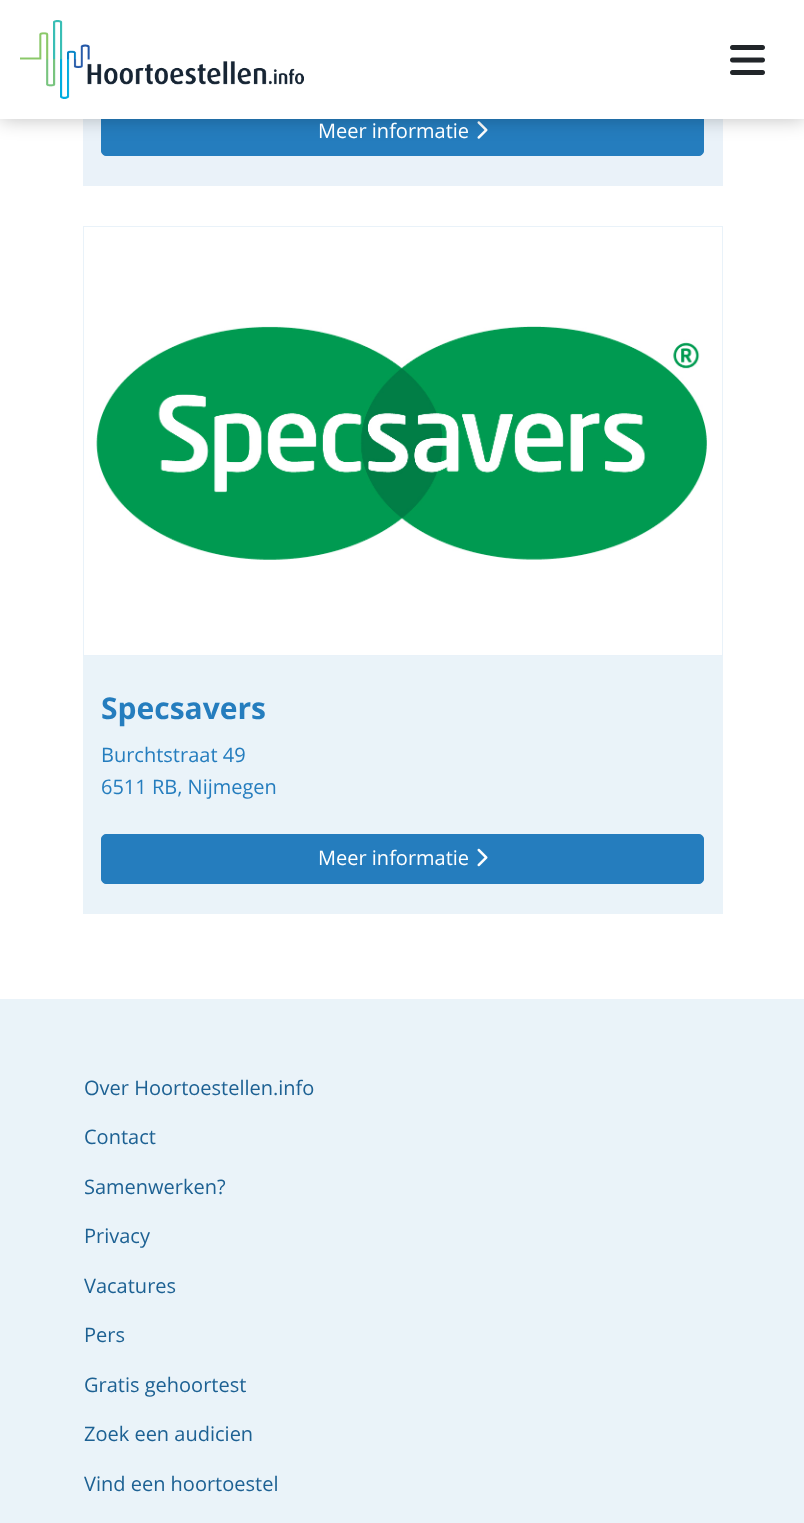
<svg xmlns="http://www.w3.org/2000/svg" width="804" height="1523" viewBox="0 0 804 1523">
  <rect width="100%" height="100%" fill="rgb(255,255,255)"/>
  <rect x="83" y="119" width="640" height="67" fill="rgb(234,242,249)"/>
  <rect x="101.5" y="106.5" width="602" height="49" rx="4.5" fill="rgb(37,125,190)" stroke="rgb(37,125,190)"/>
  <image x="477" y="121" width="11" height="18" href="pic3.png"/>
  <rect x="0" y="0" width="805" height="119" fill="rgba(0,0,0,0.25)" filter="blur(10px)"/>
  <rect x="0" y="0" width="804" height="119" fill="rgb(255,255,255)"/>
  <image x="20" y="20" width="284" height="79" href="pic1.png"/>
  <image x="730" y="45" width="35" height="30" href="pic2.png"/>
  <text x="318" y="138" font-family="Open Sans" font-size="20" fill="rgb(255,255,255)">Meer informatie</text>
  <rect x="83" y="656" width="640" height="258" fill="rgb(234,243,249)"/>
  <image x="96" y="326" width="611" height="234" href="pic4.png"/>
  <rect x="83.5" y="226.5" width="639" height="429" fill="none" stroke="rgb(233,242,249)"/>
  <text x="101" y="719" font-family="Open Sans" font-size="30" font-weight="bold" fill="rgb(37,125,190)">Specsavers</text>
  <g font-family="Open Sans" font-size="20" fill="rgb(37,125,190)">
    <text>
      <tspan x="101" y="762">Burchtstraat 49</tspan>
      <tspan x="101" y="794">6511 RB, Nijmegen</tspan>
    </text>
  </g>
  <rect x="101.5" y="834.5" width="602" height="49" rx="4.5" fill="rgb(37,125,190)" stroke="rgb(37,125,190)"/>
  <text x="318" y="865" font-family="Open Sans" font-size="20" fill="rgb(255,255,255)">Meer informatie</text>
  <image x="477" y="848" width="11" height="19" href="pic5.png"/>
  <rect x="0" y="999" width="804" height="524" fill="rgb(234,243,249)"/>
  <g font-family="Open Sans" font-size="20" fill="rgb(29,97,147)">
    <text x="84" y="1095">Over Hoortoestellen.info</text>
    <text x="84" y="1144">Contact</text>
    <text x="84" y="1194">Samenwerken?</text>
    <text x="84" y="1243">Privacy</text>
    <text x="84" y="1293">Vacatures</text>
    <text x="84" y="1342">Pers</text>
    <text x="84" y="1392">Gratis gehoortest</text>
    <text x="84" y="1441">Zoek een audicien</text>
    <text x="84" y="1491">Vind een hoortoestel</text>
  </g>
</svg>
